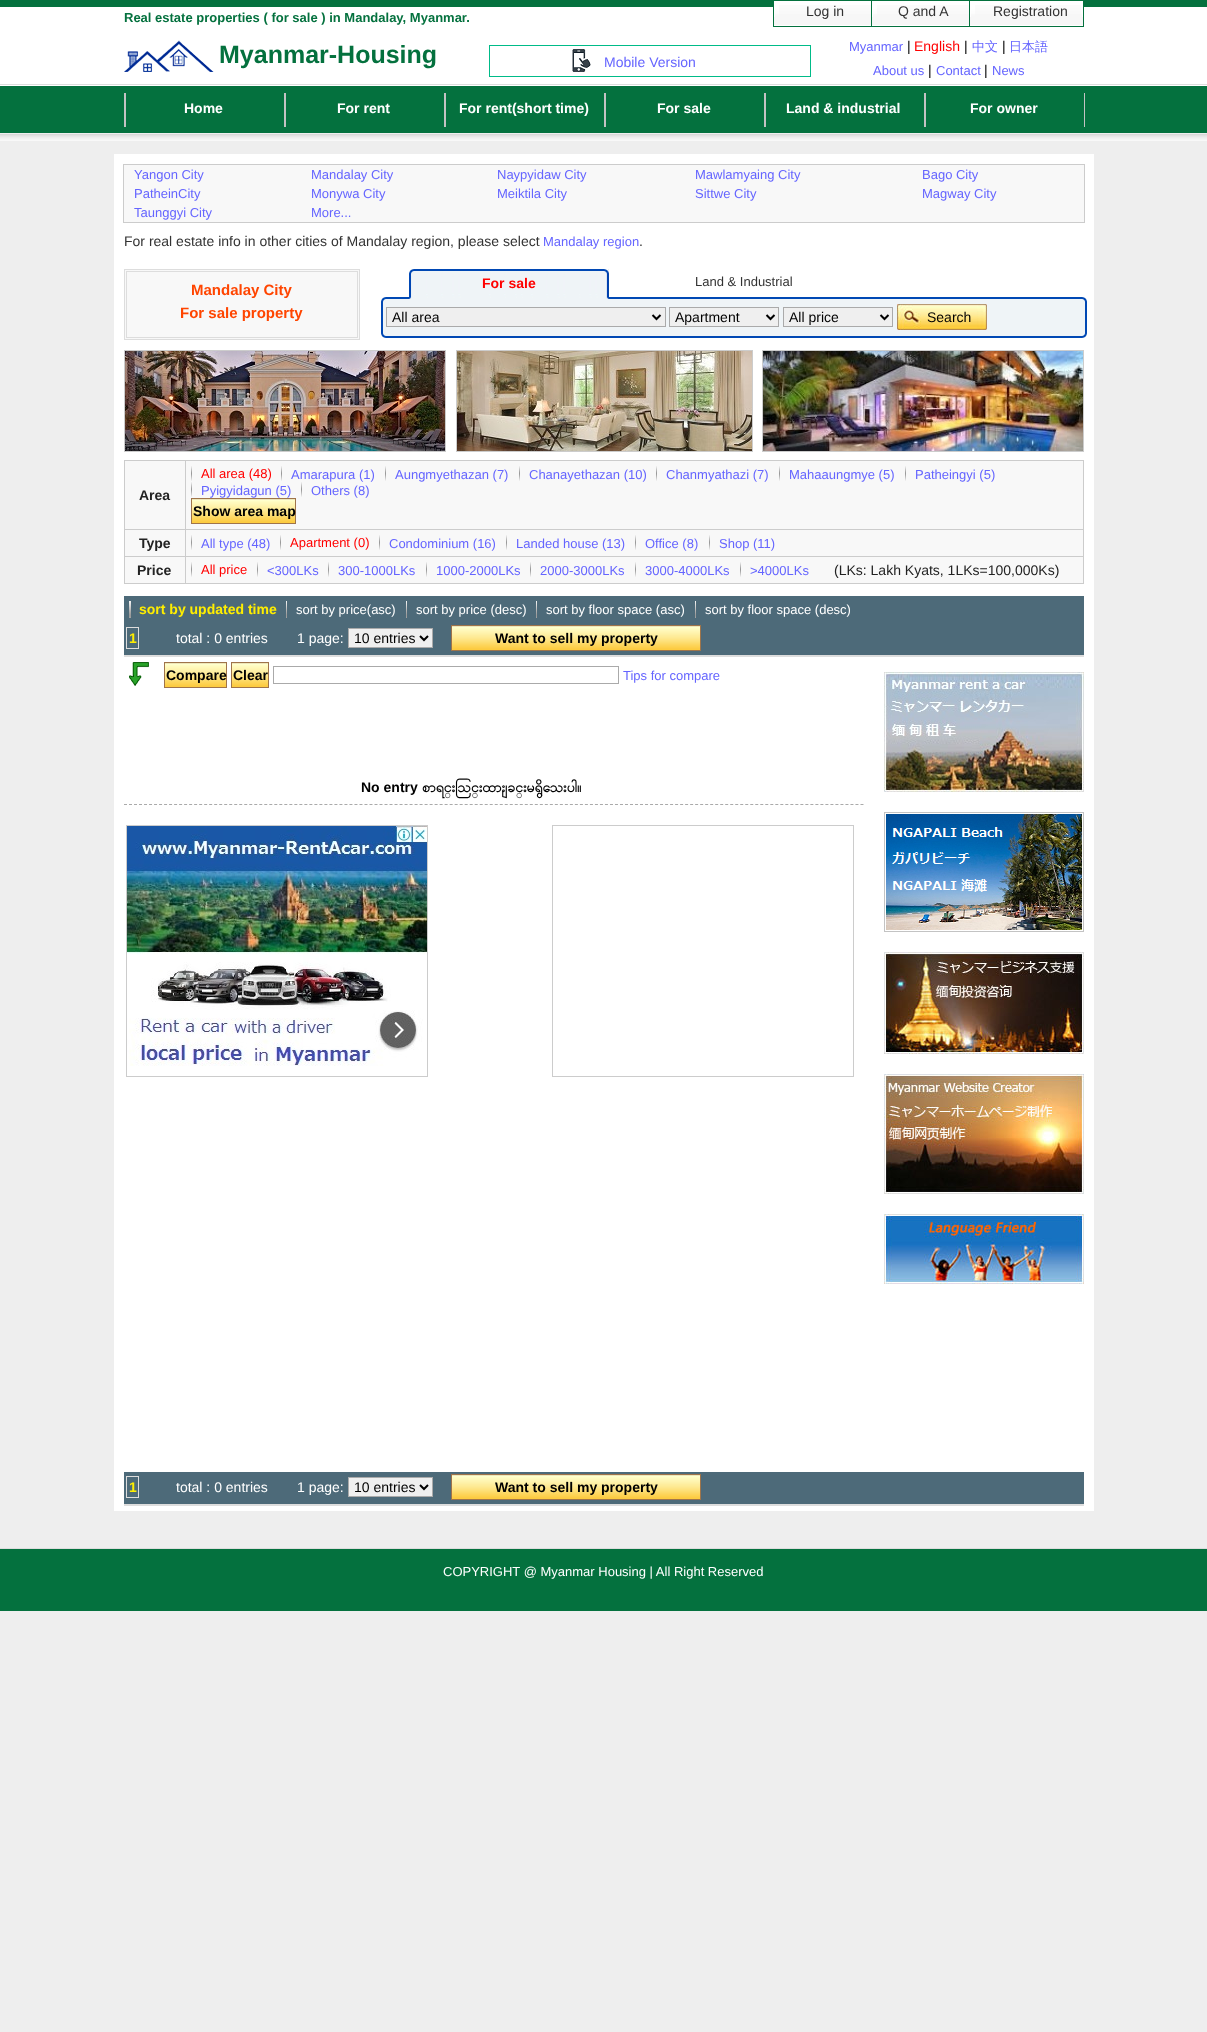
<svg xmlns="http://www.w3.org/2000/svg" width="1207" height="2032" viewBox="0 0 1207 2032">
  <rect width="100%" height="100%" fill="rgb(238,238,238)"/>
  <image x="0" y="0" width="1207" height="141" href="pic1.png"/>
  <text x="124" y="22" font-family="Liberation Sans" font-size="13" font-weight="bold" fill="rgb(4,113,62)">Real estate properties ( for sale ) in Mandalay, Myanmar.</text>
  <image x="124" y="40" width="90" height="32" href="pic2.png"/>
  <text x="219" y="63" font-family="Liberation Sans" font-size="25" font-weight="bold" fill="rgb(4,113,62)">Myanmar-Housing</text>
  <image x="773" y="1" width="98" height="26" href="pic3.png"/>
  <text x="806" y="16" font-family="Liberation Sans" font-size="14" fill="rgb(51,51,51)">Log in</text>
  <image x="871" y="1" width="98" height="26" href="pic3.png"/>
  <text x="898" y="16" font-family="Liberation Sans" font-size="14" fill="rgb(51,51,51)">Q and A</text>
  <image x="969" y="1" width="115" height="26" href="pic4.png"/>
  <text x="993" y="16" font-family="Liberation Sans" font-size="14" fill="rgb(51,51,51)">Registration</text>
  <image x="572" y="49" width="19" height="23" href="pic5.png"/>
  <rect x="489.5" y="45.5" width="321" height="31" fill="none" stroke="rgb(0,187,136)"/>
  <text x="604" y="67" font-family="Liberation Sans" font-size="14" fill="rgb(101,101,255)">Mobile Version</text>
  <text x="849" y="51" font-family="Liberation Sans" font-size="13" fill="rgb(101,101,255)">Myanmar</text>
  <text x="907" y="51" font-family="Liberation Sans" font-size="14" fill="rgb(0,0,0)">|</text>
  <text x="914" y="51" font-family="Liberation Sans" font-size="14" fill="rgb(255,0,0)">English</text>
  <text x="964" y="51" font-family="Liberation Sans" font-size="14" fill="rgb(0,0,0)">|</text>
  <text x="972" y="51" font-family="WenQuanYi Zen Hei" font-size="13" font-weight="500" fill="rgb(101,101,255)">中文</text>
  <text x="1002" y="51" font-family="Liberation Sans" font-size="14" fill="rgb(0,0,0)">|</text>
  <text x="1009" y="51" font-family="WenQuanYi Zen Hei" font-size="13" font-weight="500" fill="rgb(101,101,255)">日本語</text>
  <text x="873" y="75" font-family="Liberation Sans" font-size="13" fill="rgb(101,101,255)">About us</text>
  <text x="928" y="75" font-family="Liberation Sans" font-size="14" fill="rgb(0,0,0)">|</text>
  <text x="936" y="75" font-family="Liberation Sans" font-size="13" fill="rgb(101,101,255)">Contact</text>
  <text x="984" y="75" font-family="Liberation Sans" font-size="14" fill="rgb(0,0,0)">|</text>
  <text x="992" y="75" font-family="Liberation Sans" font-size="13" fill="rgb(101,101,255)">News</text>
  <rect x="124" y="93" width="2" height="34" fill="rgb(195,195,195)"/>
  <text x="184" y="113" font-family="Liberation Sans" font-size="14" font-weight="bold" fill="rgb(255,255,255)">Home</text>
  <rect x="284" y="93" width="2" height="34" fill="rgb(195,195,195)"/>
  <text x="337" y="113" font-family="Liberation Sans" font-size="14" font-weight="bold" fill="rgb(255,255,255)">For rent</text>
  <rect x="444" y="93" width="2" height="34" fill="rgb(195,195,195)"/>
  <text x="459" y="113" font-family="Liberation Sans" font-size="14" font-weight="bold" fill="rgb(255,255,255)">For rent(short time)</text>
  <rect x="604" y="93" width="2" height="34" fill="rgb(195,195,195)"/>
  <text x="657" y="113" font-family="Liberation Sans" font-size="14" font-weight="bold" fill="rgb(255,255,255)">For sale</text>
  <rect x="764" y="93" width="2" height="34" fill="rgb(195,195,195)"/>
  <text x="786" y="113" font-family="Liberation Sans" font-size="14" font-weight="bold" fill="rgb(255,255,255)">Land &amp; industrial</text>
  <rect x="924" y="93" width="2" height="34" fill="rgb(195,195,195)"/>
  <text x="970" y="113" font-family="Liberation Sans" font-size="14" font-weight="bold" fill="rgb(255,255,255)">For owner</text>
  <rect x="1084" y="93" width="1" height="34" fill="rgb(195,195,195)"/>
  <rect x="114" y="154" width="980" height="1357" fill="rgb(255,255,255)"/>
  <rect x="123.5" y="164.5" width="961" height="58" fill="rgb(248,248,248)" stroke="rgb(204,204,204)"/>
  <g font-family="Liberation Sans" font-size="13" fill="rgb(101,101,255)">
    <text x="134" y="179">Yangon City</text>
    <text x="311" y="179">Mandalay City</text>
    <text x="497" y="179">Naypyidaw City</text>
    <text x="695" y="179">Mawlamyaing City</text>
    <text x="922" y="179">Bago City</text>
    <text x="134" y="198">PatheinCity</text>
    <text x="311" y="198">Monywa City</text>
    <text x="497" y="198">Meiktila City</text>
    <text x="695" y="198">Sittwe City</text>
    <text x="922" y="198">Magway City</text>
    <text x="134" y="217">Taunggyi City</text>
    <text x="311" y="217">More...</text>
  </g>
  <text x="124" y="246" font-family="Liberation Sans" font-size="14" fill="rgb(51,51,51)">For real estate info in other cities of Mandalay region, please select</text>
  <text x="543" y="246" font-family="Liberation Sans" font-size="13" fill="rgb(101,101,255)">Mandalay region</text>
  <text x="639" y="246" font-family="Liberation Sans" font-size="14" fill="rgb(51,51,51)">.</text>
  <rect x="124.5" y="269.5" width="235" height="70" fill="rgb(248,248,248)" stroke="rgb(221,221,221)"/>
  <rect x="126.5" y="271.5" width="231" height="66" fill="none" stroke="rgb(221,221,221)"/>
  <g font-family="Liberation Sans" font-size="15" font-weight="bold" fill="rgb(255,69,0)">
    <text x="191" y="295">Mandalay City</text>
    <text x="180" y="318">For sale property</text>
  </g>
  <image x="386" y="297" width="696" height="41" href="pic8.png"/>
  <image x="409" y="269" width="200" height="30" href="pic6.png"/>
  <text x="482" y="288" font-family="Liberation Sans" font-size="14" font-weight="bold" fill="rgb(255,0,0)">For sale</text>
  <text x="695" y="286" font-family="Liberation Sans" font-size="13" fill="rgb(51,51,51)">Land &amp; Industrial</text>
  <image x="381" y="297" width="5" height="41" href="pic7.png"/>
  <rect x="386.5" y="307.5" width="279" height="19" fill="rgb(239,239,239)" stroke="rgb(170,170,170)"/>
  <path d="M652.5 315L656.5 319L660.5 315" fill="none" stroke="rgb(0,0,0)" stroke-width="2"/>
  <text x="392" y="322" font-family="Liberation Sans" font-size="14" fill="rgb(0,0,0)">All area</text>
  <rect x="669.5" y="307.5" width="109" height="19" fill="rgb(239,239,239)" stroke="rgb(170,170,170)"/>
  <path d="M766.5 315L770.5 319L774.5 315" fill="none" stroke="rgb(0,0,0)" stroke-width="2"/>
  <text x="675" y="322" font-family="Liberation Sans" font-size="14" fill="rgb(0,0,0)">Apartment</text>
  <rect x="783.5" y="307.5" width="109" height="19" fill="rgb(239,239,239)" stroke="rgb(170,170,170)"/>
  <path d="M880.5 315L884.5 319L888.5 315" fill="none" stroke="rgb(0,0,0)" stroke-width="2"/>
  <text x="789" y="322" font-family="Liberation Sans" font-size="14" fill="rgb(0,0,0)">All price</text>
  <image x="897" y="304" width="90" height="26" href="pic9.png"/>
  <text x="927" y="322" font-family="Liberation Sans" font-size="14" fill="rgb(0,0,0)">Search</text>
  <image x="1082" y="297" width="5" height="41" href="pic10.png"/>
  <rect x="124.5" y="350.5" width="321" height="101" fill="none" stroke="rgb(204,204,204)"/>
  <image x="125" y="351" width="320" height="100" href="pic11.png"/>
  <rect x="456.5" y="350.5" width="296" height="101" fill="none" stroke="rgb(204,204,204)"/>
  <image x="457" y="351" width="295" height="100" href="pic12.png"/>
  <rect x="762.5" y="350.5" width="321" height="101" fill="none" stroke="rgb(204,204,204)"/>
  <image x="763" y="351" width="320" height="100" href="pic13.png"/>
  <rect x="125" y="461" width="958" height="122" fill="rgb(248,248,248)"/>
  <rect x="185" y="460" width="899" height="1" fill="rgb(204,204,204)"/>
  <rect x="185" y="529" width="899" height="1" fill="rgb(204,204,204)"/>
  <rect x="185" y="556" width="899" height="1" fill="rgb(204,204,204)"/>
  <rect x="1083" y="556" width="1" height="28" fill="rgb(204,204,204)"/>
  <rect x="185" y="583" width="899" height="1" fill="rgb(204,204,204)"/>
  <rect x="185" y="556" width="1" height="28" fill="rgb(204,204,204)"/>
  <rect x="124" y="556" width="62" height="1" fill="rgb(204,204,204)"/>
  <rect x="185" y="529" width="1" height="28" fill="rgb(204,204,204)"/>
  <rect x="124" y="529" width="62" height="1" fill="rgb(204,204,204)"/>
  <rect x="185" y="460" width="1" height="70" fill="rgb(204,204,204)"/>
  <rect x="124" y="460" width="62" height="1" fill="rgb(204,204,204)"/>
  <rect x="124" y="583" width="62" height="1" fill="rgb(204,204,204)"/>
  <rect x="124" y="556" width="1" height="28" fill="rgb(204,204,204)"/>
  <rect x="124" y="529" width="1" height="28" fill="rgb(204,204,204)"/>
  <rect x="124" y="460" width="1" height="70" fill="rgb(204,204,204)"/>
  <text x="139" y="500" font-family="Liberation Sans" font-size="14" font-weight="bold" fill="rgb(34,34,34)">Area</text>
  <rect x="1083" y="529" width="1" height="28" fill="rgb(204,204,204)"/>
  <rect x="1083" y="460" width="1" height="70" fill="rgb(204,204,204)"/>
  <image x="191" y="466" width="1" height="15" href="pic14.png"/>
  <text x="201" y="478" font-family="Liberation Sans" font-size="13" fill="rgb(255,0,0)">All area (48)</text>
  <image x="281" y="466" width="1" height="15" href="pic14.png"/>
  <text x="291" y="479" font-family="Liberation Sans" font-size="13" fill="rgb(101,101,255)">Amarapura (1)</text>
  <image x="385" y="466" width="1" height="15" href="pic14.png"/>
  <text x="395" y="479" font-family="Liberation Sans" font-size="13" fill="rgb(101,101,255)">Aungmyethazan (7)</text>
  <image x="519" y="466" width="1" height="15" href="pic14.png"/>
  <text x="529" y="479" font-family="Liberation Sans" font-size="13" fill="rgb(101,101,255)">Chanayethazan (10)</text>
  <image x="656" y="466" width="1" height="15" href="pic14.png"/>
  <text x="666" y="479" font-family="Liberation Sans" font-size="13" fill="rgb(101,101,255)">Chanmyathazi (7)</text>
  <image x="779" y="466" width="1" height="15" href="pic14.png"/>
  <text x="789" y="479" font-family="Liberation Sans" font-size="13" fill="rgb(101,101,255)">Mahaaungmye (5)</text>
  <image x="905" y="466" width="1" height="15" href="pic14.png"/>
  <text x="915" y="479" font-family="Liberation Sans" font-size="13" fill="rgb(101,101,255)">Patheingyi (5)</text>
  <image x="191" y="482" width="1" height="15" href="pic14.png"/>
  <text x="201" y="495" font-family="Liberation Sans" font-size="13" fill="rgb(101,101,255)">Pyigyidagun (5)</text>
  <image x="301" y="482" width="1" height="15" href="pic14.png"/>
  <text x="311" y="495" font-family="Liberation Sans" font-size="13" fill="rgb(101,101,255)">Others (8)</text>
  <image x="192" y="499" width="103" height="24" href="pic15.png"/>
  <rect x="191.5" y="498.5" width="104" height="25" fill="none" stroke="rgb(159,116,74)"/>
  <text x="193" y="516" font-family="Liberation Sans" font-size="14" font-weight="bold" fill="rgb(0,0,0)">Show area map</text>
  <text x="139" y="548" font-family="Liberation Sans" font-size="14" font-weight="bold" fill="rgb(34,34,34)">Type</text>
  <image x="191" y="535" width="1" height="15" href="pic14.png"/>
  <text x="201" y="548" font-family="Liberation Sans" font-size="13" fill="rgb(101,101,255)">All type (48)</text>
  <image x="280" y="535" width="1" height="15" href="pic14.png"/>
  <text x="290" y="547" font-family="Liberation Sans" font-size="13" fill="rgb(255,0,0)">Apartment (0)</text>
  <image x="379" y="535" width="1" height="15" href="pic14.png"/>
  <text x="389" y="548" font-family="Liberation Sans" font-size="13" fill="rgb(101,101,255)">Condominium (16)</text>
  <image x="506" y="535" width="1" height="15" href="pic14.png"/>
  <text x="516" y="548" font-family="Liberation Sans" font-size="13" fill="rgb(101,101,255)">Landed house (13)</text>
  <image x="635" y="535" width="1" height="15" href="pic14.png"/>
  <text x="645" y="548" font-family="Liberation Sans" font-size="13" fill="rgb(101,101,255)">Office (8)</text>
  <image x="709" y="535" width="1" height="15" href="pic14.png"/>
  <text x="719" y="548" font-family="Liberation Sans" font-size="13" fill="rgb(101,101,255)">Shop (11)</text>
  <text x="137" y="575" font-family="Liberation Sans" font-size="14" font-weight="bold" fill="rgb(34,34,34)">Price</text>
  <image x="191" y="562" width="1" height="15" href="pic14.png"/>
  <text x="201" y="574" font-family="Liberation Sans" font-size="13" fill="rgb(255,0,0)">All price</text>
  <image x="257" y="562" width="1" height="15" href="pic14.png"/>
  <text x="267" y="575" font-family="Liberation Sans" font-size="13" fill="rgb(101,101,255)">&lt;300LKs</text>
  <image x="328" y="562" width="1" height="15" href="pic14.png"/>
  <text x="338" y="575" font-family="Liberation Sans" font-size="13" fill="rgb(101,101,255)">300-1000LKs</text>
  <image x="426" y="562" width="1" height="15" href="pic14.png"/>
  <text x="436" y="575" font-family="Liberation Sans" font-size="13" fill="rgb(101,101,255)">1000-2000LKs</text>
  <image x="530" y="562" width="1" height="15" href="pic14.png"/>
  <text x="540" y="575" font-family="Liberation Sans" font-size="13" fill="rgb(101,101,255)">2000-3000LKs</text>
  <image x="635" y="562" width="1" height="15" href="pic14.png"/>
  <text x="645" y="575" font-family="Liberation Sans" font-size="13" fill="rgb(101,101,255)">3000-4000LKs</text>
  <image x="740" y="562" width="1" height="15" href="pic14.png"/>
  <text x="750" y="575" font-family="Liberation Sans" font-size="13" fill="rgb(101,101,255)">&gt;4000LKs</text>
  <text x="834" y="575" font-family="Liberation Sans" font-size="14" fill="rgb(34,34,34)">(LKs: Lakh Kyats, 1LKs=100,000Ks)</text>
  <rect x="124" y="596" width="960" height="59" fill="rgb(77,106,121)"/>
  <image x="129" y="601" width="2" height="17" href="pic16.png"/>
  <text x="139" y="614" font-family="Liberation Sans" font-size="14" font-weight="bold" fill="rgb(255,238,0)">sort by updated time</text>
  <image x="286" y="601" width="1" height="17" href="pic17.png"/>
  <text x="296" y="614" font-family="Liberation Sans" font-size="13" fill="rgb(255,255,255)">sort by price(asc)</text>
  <image x="406" y="601" width="1" height="17" href="pic17.png"/>
  <text x="416" y="614" font-family="Liberation Sans" font-size="13" fill="rgb(255,255,255)">sort by price (desc)</text>
  <image x="536" y="601" width="1" height="17" href="pic17.png"/>
  <text x="546" y="614" font-family="Liberation Sans" font-size="13" fill="rgb(255,255,255)">sort by floor space (asc)</text>
  <image x="695" y="601" width="1" height="17" href="pic17.png"/>
  <text x="705" y="614" font-family="Liberation Sans" font-size="13" fill="rgb(255,255,255)">sort by floor space (desc)</text>
  <rect x="124" y="655" width="960" height="2" fill="rgb(221,221,221)"/>
  <rect x="126.5" y="627.5" width="12" height="21" fill="none" stroke="rgb(221,221,221)"/>
  <text x="129" y="643" font-family="Liberation Sans" font-size="14" font-weight="bold" fill="rgb(255,238,0)">1</text>
  <g font-family="Liberation Sans" font-size="14" fill="rgb(255,255,255)">
    <text x="176" y="643">total : 0 entries</text>
    <text x="297" y="643">1 page:</text>
  </g>
  <rect x="348.5" y="628.5" width="84" height="19" fill="rgb(239,239,239)" stroke="rgb(170,170,170)"/>
  <path d="M420 636L424 640L428 636" fill="none" stroke="rgb(0,0,0)" stroke-width="2"/>
  <text x="354" y="643" font-family="Liberation Sans" font-size="14" fill="rgb(0,0,0)">10 entries</text>
  <image x="452" y="626" width="248" height="24" href="pic18.png"/>
  <rect x="451.5" y="625.5" width="249" height="25" fill="none" stroke="rgb(159,116,74)"/>
  <text x="495" y="643" font-family="Liberation Sans" font-size="14" font-weight="bold" fill="rgb(0,0,0)">Want to sell my property</text>
  <image x="129" y="662" width="20" height="24" href="pic19.png"/>
  <image x="165" y="663" width="61" height="24" href="pic20.png"/>
  <rect x="164.5" y="662.5" width="62" height="25" fill="none" stroke="rgb(159,116,74)"/>
  <text x="166" y="680" font-family="Liberation Sans" font-size="14" font-weight="bold" fill="rgb(0,0,0)">Compare</text>
  <image x="232" y="663" width="36" height="24" href="pic21.png"/>
  <rect x="231.5" y="662.5" width="37" height="25" fill="none" stroke="rgb(159,116,74)"/>
  <text x="233" y="680" font-family="Liberation Sans" font-size="14" font-weight="bold" fill="rgb(0,0,0)">Clear</text>
  <rect x="273.5" y="666.5" width="345" height="17" fill="none" stroke="rgb(170,170,170)"/>
  <text x="623" y="680" font-family="Liberation Sans" font-size="13" fill="rgb(101,101,255)">Tips for compare</text>
  <path d="M124 804.5H864" fill="none" stroke="rgb(170,170,170)" stroke-dasharray="3 2.01"/>
  <text x="361" y="792" font-family="Liberation Sans" font-size="14" font-weight="bold" fill="rgb(0,0,0)">No entry</text>
  <text x="422" y="792" font-family="Padauk" font-size="14" font-weight="bold" fill="rgb(0,0,0)">စာရင္းသြင္းထားျခင္းမရွိေသးပါ။</text>
  <rect x="126.5" y="825.5" width="301" height="251" fill="none" stroke="rgb(204,204,204)"/>
  <image x="127" y="826" width="300" height="240" href="pic22.png"/>
  <rect x="552.5" y="825.5" width="301" height="251" fill="none" stroke="rgb(204,204,204)"/>
  <image x="884" y="672" width="200" height="612" href="pic23.png"/>
  <rect x="124" y="1472" width="960" height="32" fill="rgb(77,106,121)"/>
  <rect x="124" y="1504" width="960" height="2" fill="rgb(221,221,221)"/>
  <rect x="126.5" y="1476.5" width="12" height="21" fill="none" stroke="rgb(221,221,221)"/>
  <text x="129" y="1492" font-family="Liberation Sans" font-size="14" font-weight="bold" fill="rgb(255,238,0)">1</text>
  <g font-family="Liberation Sans" font-size="14" fill="rgb(255,255,255)">
    <text x="176" y="1492">total : 0 entries</text>
    <text x="297" y="1492">1 page:</text>
  </g>
  <rect x="348.5" y="1477.5" width="84" height="19" fill="rgb(239,239,239)" stroke="rgb(170,170,170)"/>
  <path d="M420 1485L424 1489L428 1485" fill="none" stroke="rgb(0,0,0)" stroke-width="2"/>
  <text x="354" y="1492" font-family="Liberation Sans" font-size="14" fill="rgb(0,0,0)">10 entries</text>
  <image x="452" y="1475" width="248" height="24" href="pic18.png"/>
  <rect x="451.5" y="1474.5" width="249" height="25" fill="none" stroke="rgb(159,116,74)"/>
  <text x="495" y="1492" font-family="Liberation Sans" font-size="14" font-weight="bold" fill="rgb(0,0,0)">Want to sell my property</text>
  <rect x="0" y="1549" width="1207" height="62" fill="rgb(4,113,62)"/>
  <rect x="0" y="1548" width="1207" height="1" fill="rgb(221,221,221)"/>
  <text x="443" y="1576" font-family="Liberation Sans" font-size="13" fill="rgb(255,255,255)">COPYRIGHT @ Myanmar Housing | All Right Reserved</text>
</svg>
